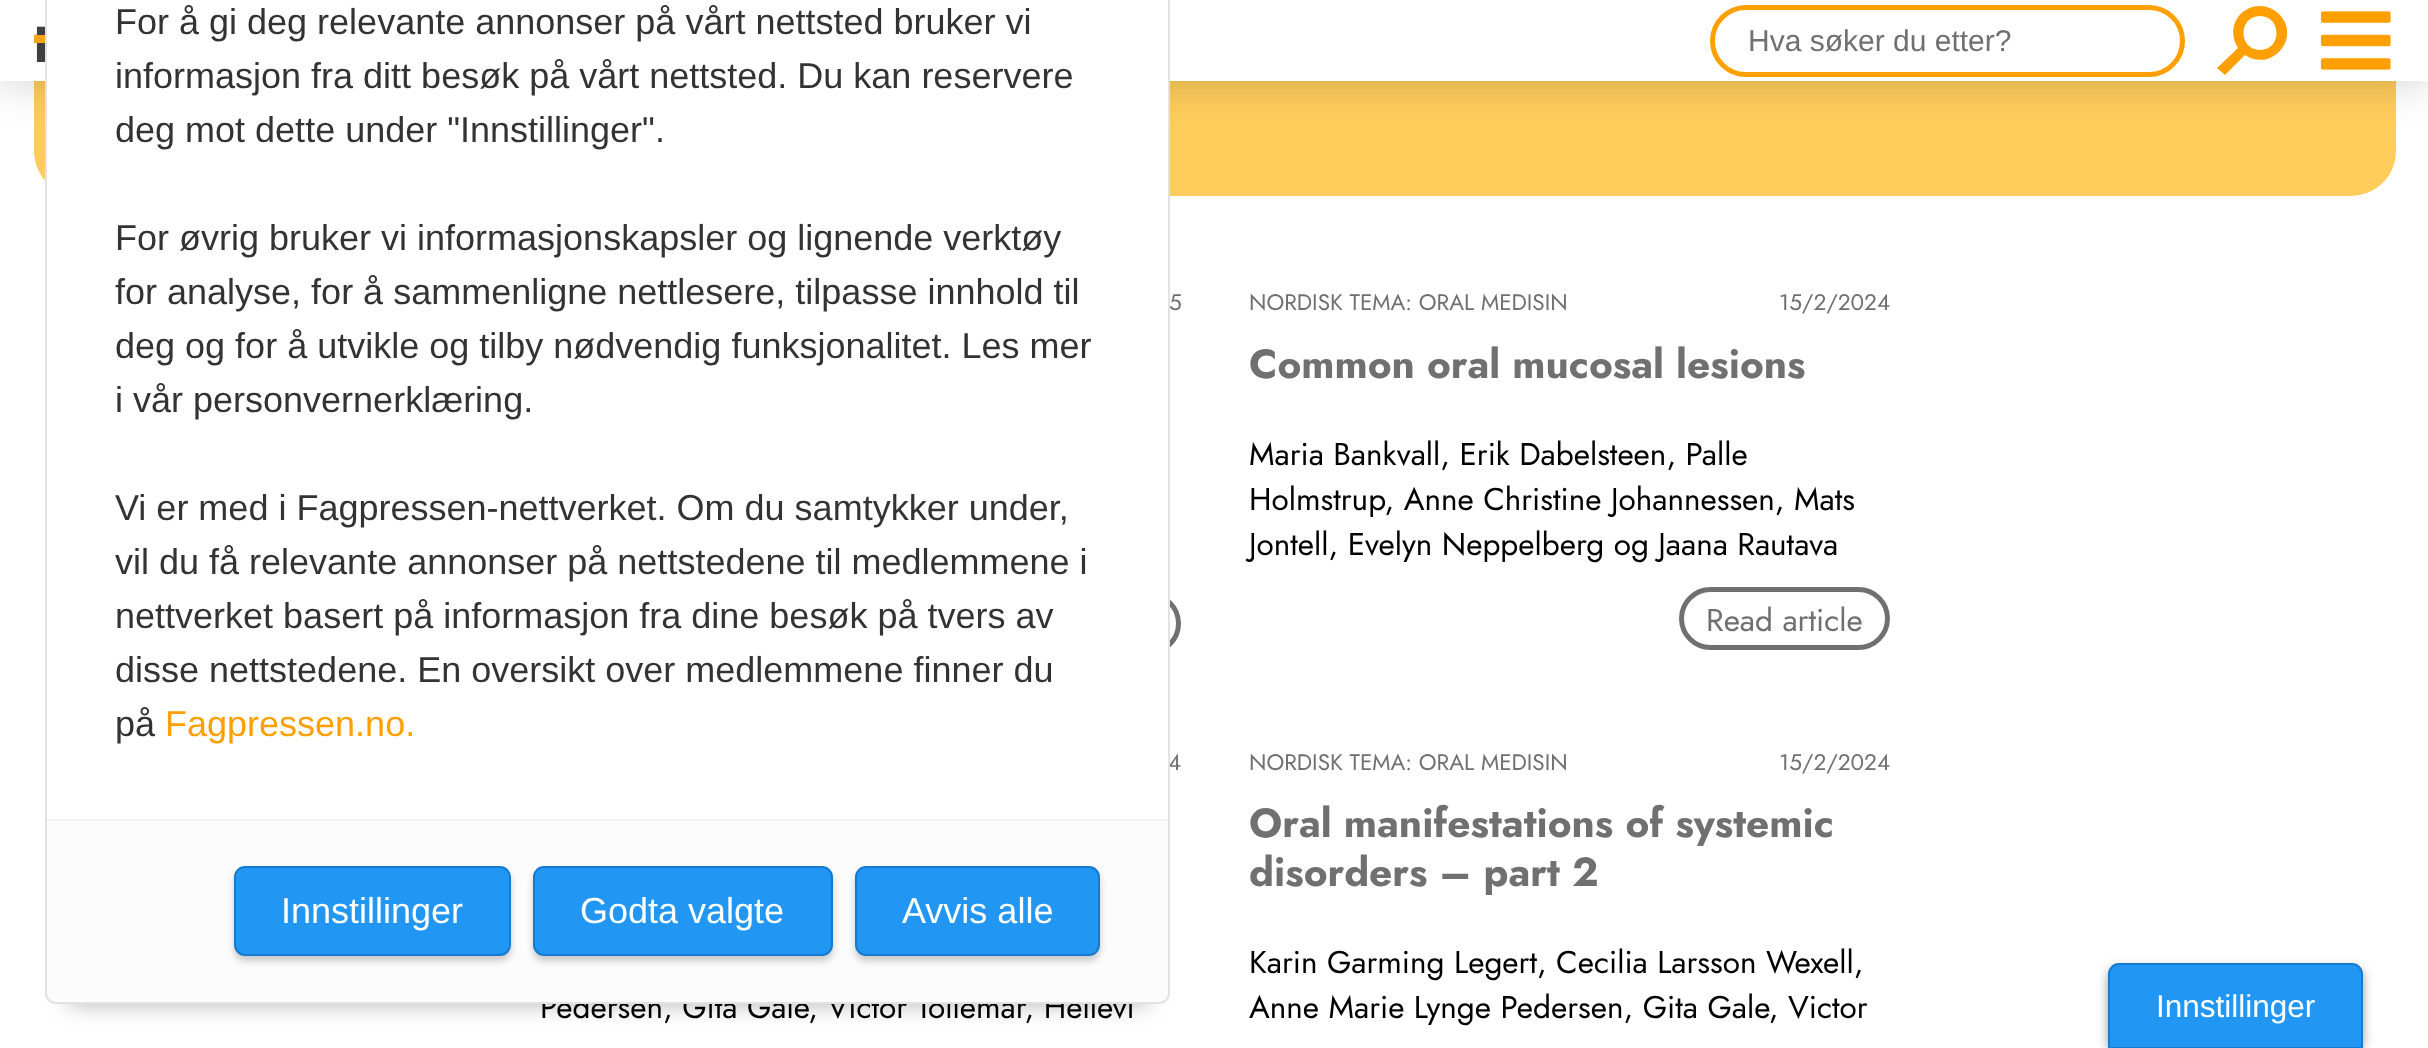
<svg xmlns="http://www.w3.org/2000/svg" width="2428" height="1048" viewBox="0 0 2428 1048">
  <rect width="100%" height="100%" fill="rgb(255,255,255)"/>
  <rect x="34" y="-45" width="2362" height="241" rx="45" fill="rgb(255,205,92)"/>
  <rect x="0" y="0" width="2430" height="81" fill="rgba(0,0,0,0.2)" filter="blur(22.5px)"/>
  <rect x="0" y="0" width="2428" height="81" fill="rgb(255,255,255)"/>
  <image x="34" y="26" width="11" height="37" href="pic1.png"/>
  <rect x="972.5" y="594.5" width="206" height="58" rx="29" fill="none" stroke="rgb(112,112,112)" stroke-width="5"/>
  <rect x="68" y="-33" width="1080" height="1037" fill="rgba(0,0,0,0.3)" filter="blur(11px)"/>
  <g font-family="Jost" font-size="22.5" fill="rgb(112,112,112)">
    <text x="1169" y="310">5</text>
    <text x="1168" y="770">4</text>
  </g>
  <text x="540" y="1018" font-family="Jost" font-size="31.5" fill="rgb(0,0,0)">Pedersen, Gita Gale, Victor Tollemar, Hellevi</text>
  <rect x="46" y="-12" width="1123" height="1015" rx="10" fill="rgb(255,255,255)" stroke="rgb(226,226,226)" stroke-width="2"/>
  <g font-family="Liberation Sans" font-size="36" fill="rgb(51,51,51)">
    <text>
      <tspan x="115" y="34">For å gi deg relevante annonser på vårt nettsted bruker vi</tspan>
      <tspan x="115" y="88">informasjon fra ditt besøk på vårt nettsted. Du kan reservere</tspan>
      <tspan x="115" y="142">deg mot dette under "Innstillinger".</tspan>
    </text>
    <text>
      <tspan x="115" y="250">For øvrig bruker vi informasjonskapsler og lignende verktøy</tspan>
      <tspan x="115" y="304">for analyse, for å sammenligne nettlesere, tilpasse innhold til</tspan>
      <tspan x="115" y="358">deg og for å utvikle og tilby nødvendig funksjonalitet. Les mer</tspan>
      <tspan x="115" y="412">i vår personvernerklæring.</tspan>
    </text>
    <text>
      <tspan x="115" y="520">Vi er med i Fagpressen-nettverket. Om du samtykker under,</tspan>
      <tspan x="115" y="574">vil du få relevante annonser på nettstedene til medlemmene i</tspan>
      <tspan x="115" y="628">nettverket basert på informasjon fra dine besøk på tvers av</tspan>
      <tspan x="115" y="682">disse nettstedene. En oversikt over medlemmene finner du</tspan>
      <tspan x="115" y="736">på</tspan>
    </text>
  </g>
  <text x="165" y="736" font-family="Liberation Sans" font-size="36" fill="rgb(255,160,0)">Fagpressen.no.</text>
  <path d="M47 819H1168V992C1168 997 1164 1001 1159 1001H56C51 1001 47 997 47 992Z" fill="rgb(252,252,252)"/>
  <rect x="47" y="819" width="1121" height="2" fill="rgb(242,242,242)"/>
  <rect x="234" y="871" width="277" height="90" rx="11" fill="rgba(0,0,0,0.2)" filter="blur(3.5px)"/>
  <rect x="235" y="867" width="275" height="88" rx="10" fill="rgb(33,150,243)" stroke="rgb(21,123,206)" stroke-width="2"/>
  <text x="281" y="923" font-family="Liberation Sans" font-size="36" fill="rgb(255,255,255)">Innstillinger</text>
  <rect x="533" y="871" width="300" height="90" rx="11" fill="rgba(0,0,0,0.2)" filter="blur(3.5px)"/>
  <rect x="534" y="867" width="298" height="88" rx="10" fill="rgb(33,150,243)" stroke="rgb(21,123,206)" stroke-width="2"/>
  <text x="580" y="923" font-family="Liberation Sans" font-size="36" fill="rgb(255,255,255)">Godta valgte</text>
  <rect x="855" y="871" width="245" height="90" rx="11" fill="rgba(0,0,0,0.2)" filter="blur(3.5px)"/>
  <rect x="856" y="867" width="243" height="88" rx="10" fill="rgb(33,150,243)" stroke="rgb(21,123,206)" stroke-width="2"/>
  <text x="902" y="923" font-family="Liberation Sans" font-size="36" fill="rgb(255,255,255)">Avvis alle</text>
  <rect x="1712.5" y="7.5" width="470" height="67" rx="33.5" fill="none" stroke="rgb(255,160,0)" stroke-width="5"/>
  <text x="1748" y="51" font-family="Liberation Sans" font-size="30" fill="rgb(112,112,112)">Hva søker du etter?</text>
  <path d="M2260 6C2238 6 2226 30 2238 48L2217 68L2225 75L2245 55C2272 73 2302 37 2279 14C2274 9 2267 6 2260 6ZM2260 50C2238 50 2238 16 2260 16C2282 16 2282 50 2260 50Z" fill="rgb(255,160,0)"/>
  <image x="2320" y="11" width="71" height="59" href="pic2.png"/>
  <g font-family="Jost" font-size="22.5" fill="rgb(112,112,112)">
    <text x="1249" y="310">NORDISK TEMA: ORAL MEDISIN</text>
    <text x="1779" y="310">15/2/2024</text>
  </g>
  <text x="1249" y="378" font-family="Jost" font-size="40.5" font-weight="bold" fill="rgb(112,112,112)">Common oral mucosal lesions</text>
  <g font-family="Jost" font-size="31.5" fill="rgb(0,0,0)">
    <text>
      <tspan x="1249" y="465">Maria Bankvall, Erik Dabelsteen, Palle</tspan>
      <tspan x="1249" y="510">Holmstrup, Anne Christine Johannessen, Mats</tspan>
      <tspan x="1249" y="555">Jontell, Evelyn Neppelberg og Jaana Rautava</tspan>
    </text>
  </g>
  <rect x="1681.5" y="589.5" width="206" height="58" rx="29" fill="none" stroke="rgb(112,112,112)" stroke-width="5"/>
  <text x="1706" y="631" font-family="Jost" font-size="31.5" fill="rgb(112,112,112)">Read article</text>
  <g font-family="Jost" font-size="22.5" fill="rgb(112,112,112)">
    <text x="1249" y="770">NORDISK TEMA: ORAL MEDISIN</text>
    <text x="1779" y="770">15/2/2024</text>
  </g>
  <g font-family="Jost" font-size="40.5" font-weight="bold" fill="rgb(112,112,112)">
    <text>
      <tspan x="1249" y="837">Oral manifestations of systemic</tspan>
      <tspan x="1249" y="886">disorders – part 2</tspan>
    </text>
  </g>
  <g font-family="Jost" font-size="31.5" fill="rgb(0,0,0)">
    <text>
      <tspan x="1249" y="973">Karin Garming Legert, Cecilia Larsson Wexell,</tspan>
      <tspan x="1249" y="1018">Anne Marie Lynge Pedersen, Gita Gale, Victor</tspan>
    </text>
  </g>
  <rect x="2108" y="968" width="255" height="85" rx="11" fill="rgba(0,0,0,0.4)" filter="blur(5.5px)"/>
  <path d="M2119 964H2352C2357.5 964 2362 968.5 2362 974V1048H2109V974C2109 968.5 2113.5 964 2119 964Z" fill="rgb(33,150,243)" stroke="rgb(21,123,206)" stroke-width="2"/>
  <text x="2156" y="1017" font-family="Liberation Sans" font-size="31.5" fill="rgb(255,255,255)">Innstillinger</text>
</svg>
